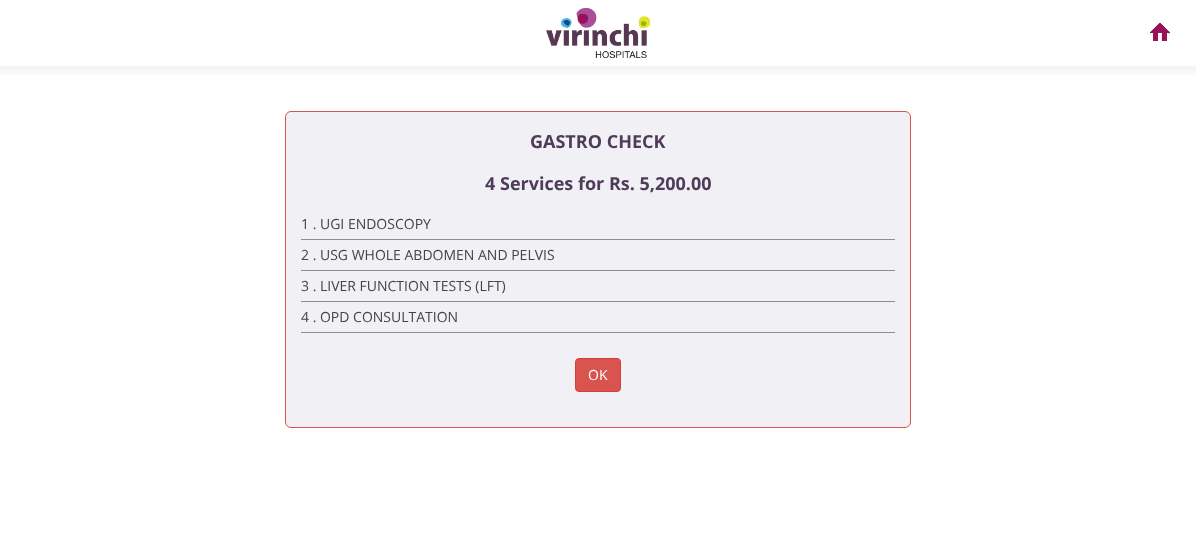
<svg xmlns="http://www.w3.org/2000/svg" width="1196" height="540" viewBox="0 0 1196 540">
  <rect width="100%" height="100%" fill="rgb(255,255,255)"/>
  <image x="0" y="66" width="1196" height="9" href="pic1.png"/>
  <image x="546" y="8" width="104" height="50" href="pic2.png"/>
  <image x="1150" y="23" width="20" height="18" href="pic3.png"/>
  <rect x="285.5" y="111.5" width="625" height="316" rx="5.5" fill="rgb(240,240,245)" stroke="rgb(217,83,79)"/>
  <g font-family="Open Sans" font-size="18" font-weight="bold" fill="rgb(79,60,89)">
    <text x="530" y="148">GASTRO CHECK</text>
    <text x="485" y="190">4 Services for Rs. 5,200.00</text>
  </g>
  <text x="301" y="229" font-family="Open Sans" font-size="14" fill="rgb(68,68,68)">1 . UGI ENDOSCOPY</text>
  <rect x="301" y="239" width="594" height="1" fill="rgb(142,142,142)"/>
  <text x="301" y="260" font-family="Open Sans" font-size="14" fill="rgb(68,68,68)">2 . USG WHOLE ABDOMEN AND PELVIS</text>
  <rect x="301" y="270" width="594" height="1" fill="rgb(142,142,142)"/>
  <text x="301" y="291" font-family="Open Sans" font-size="14" fill="rgb(68,68,68)">3 . LIVER FUNCTION TESTS (LFT)</text>
  <rect x="301" y="301" width="594" height="1" fill="rgb(142,142,142)"/>
  <text x="301" y="322" font-family="Open Sans" font-size="14" fill="rgb(68,68,68)">4 . OPD CONSULTATION</text>
  <rect x="301" y="332" width="594" height="1" fill="rgb(142,142,142)"/>
  <rect x="575.5" y="358.5" width="45" height="33" rx="3.5" fill="rgb(217,83,79)" stroke="rgb(212,63,58)"/>
  <text x="588" y="380" font-family="Open Sans" font-size="14" fill="rgb(255,255,255)">OK</text>
</svg>
